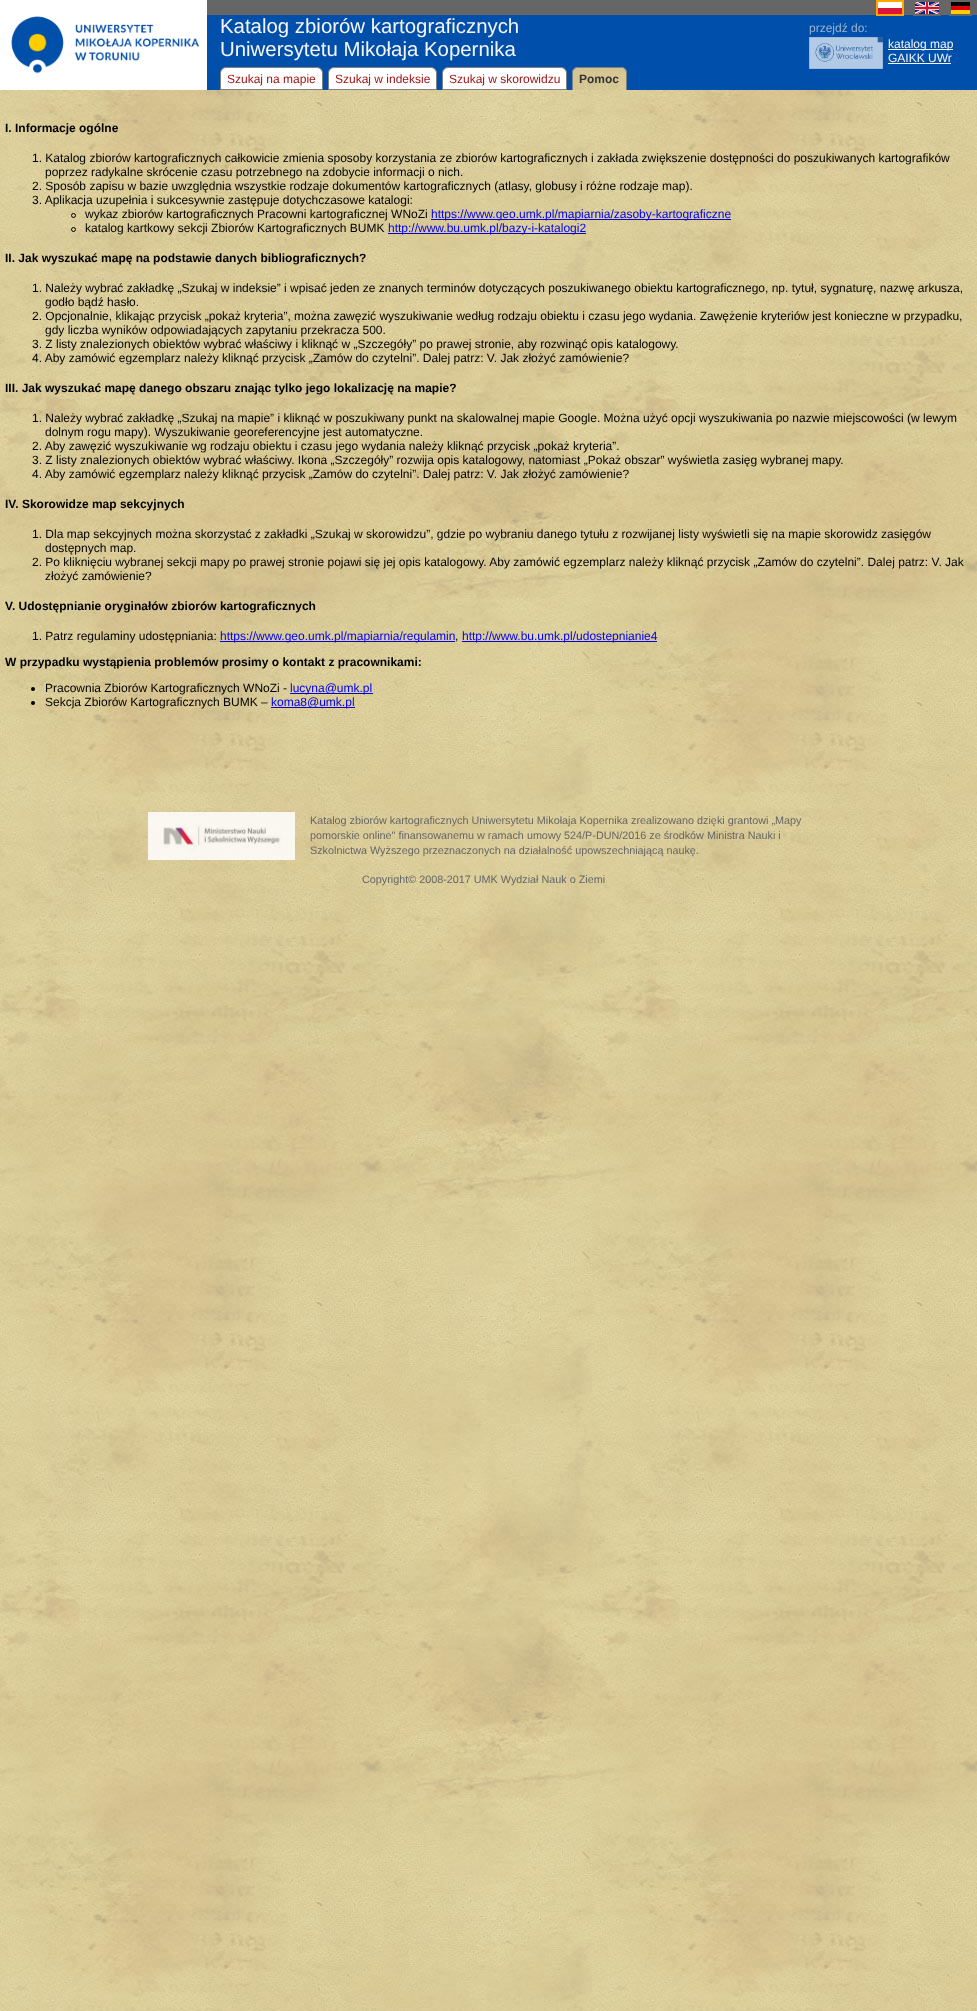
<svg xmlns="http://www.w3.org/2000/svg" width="977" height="2011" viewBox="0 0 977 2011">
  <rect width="100%" height="100%" fill="rgb(255,255,255)"/>
  <image x="0" y="90" width="977" height="1921" href="pic1.png"/>
  <rect x="207" y="15" width="770" height="75" fill="rgb(0,79,171)"/>
  <image x="0" y="0" width="207" height="90" href="pic2.png"/>
  <rect x="207" y="0" width="770" height="15" fill="rgb(102,102,102)"/>
  <rect x="877" y="1" width="26" height="14" fill="none" stroke="rgb(255,165,0)" stroke-width="2"/>
  <rect x="914" y="1" width="26" height="14" fill="none" stroke="rgb(102,102,102)" stroke-width="2"/>
  <rect x="950" y="1" width="21" height="14" fill="none" stroke="rgb(102,102,102)" stroke-width="2"/>
  <image x="878" y="2" width="24" height="12" href="pic3.png"/>
  <image x="915" y="2" width="24" height="12" href="pic4.png"/>
  <image x="951" y="2" width="19" height="12" href="pic5.png"/>
  <g font-family="Liberation Sans" font-size="20.4" fill="rgb(245,245,245)">
    <text>
      <tspan x="220" y="33">Katalog zbiorów kartograficznych</tspan>
      <tspan x="220" y="56">Uniwersytetu Mikołaja Kopernika</tspan>
    </text>
  </g>
  <text x="809" y="32" font-family="Liberation Sans" font-size="12" fill="rgb(155,179,207)">przejdź do:</text>
  <image x="809" y="37" width="74" height="32" href="pic6.png"/>
  <rect x="888" y="49" width="65" height="1" fill="rgb(245,245,245)"/>
  <g font-family="Liberation Sans" font-size="12" fill="rgb(245,245,245)">
    <text>
      <tspan x="888" y="48">katalog map</tspan>
      <tspan x="888" y="62">GAIKK UWr</tspan>
    </text>
  </g>
  <rect x="888" y="63" width="63" height="1" fill="rgb(245,245,245)"/>
  <path d="M226 67.5H317C320 67.5 322.5 70 322.5 73V89.5H220.5V73C220.5 70 223 67.5 226 67.5Z" fill="rgb(255,255,255)" stroke="rgb(128,128,128)"/>
  <text x="227" y="83" font-family="Liberation Sans" font-size="12" fill="rgb(161,20,20)">Szukaj na mapie</text>
  <path d="M334 67.5H431C434 67.5 436.5 70 436.5 73V89.5H328.5V73C328.5 70 331 67.5 334 67.5Z" fill="rgb(255,255,255)" stroke="rgb(128,128,128)"/>
  <text x="335" y="83" font-family="Liberation Sans" font-size="12" fill="rgb(161,20,20)">Szukaj w indeksie</text>
  <path d="M448 67.5H561C564 67.5 566.5 70 566.5 73V89.5H442.5V73C442.5 70 445 67.5 448 67.5Z" fill="rgb(255,255,255)" stroke="rgb(128,128,128)"/>
  <text x="449" y="83" font-family="Liberation Sans" font-size="12" fill="rgb(161,20,20)">Szukaj w skorowidzu</text>
  <image x="572" y="67" width="55" height="23" href="pic7.png"/>
  <path d="M578 67H621C624 67 627 70 627 73V90H572V73C572 70 575 67 578 67ZM578 68H621C624 68 626 70 626 73V90H573V73C573 70 575 68 578 68Z" fill="rgb(128,128,128)" fill-rule="evenodd"/>
  <text x="579" y="83" font-family="Liberation Sans" font-size="12" font-weight="bold" fill="rgb(51,51,51)">Pomoc</text>
  <text x="5" y="132" font-family="Liberation Sans" font-size="12" font-weight="bold" fill="rgb(0,0,0)">I. Informacje ogólne</text>
  <g font-family="Liberation Sans" font-size="12" fill="rgb(0,0,0)">
    <text x="32" y="162">1. Katalog zbiorów kartograficznych całkowicie zmienia sposoby korzystania ze zbiorów kartograficznych i zakłada zwiększenie dostępności do poszukiwanych kartografików</text>
    <text x="45" y="176">poprzez radykalne skrócenie czasu potrzebnego na zdobycie informacji o nich.</text>
    <text>
      <tspan x="32" y="190">2. Sposób zapisu w bazie uwzględnia wszystkie rodzaje dokumentów kartograficznych (atlasy, globusy i różne rodzaje map).</tspan>
      <tspan x="32" y="204">3. Aplikacja uzupełnia i sukcesywnie zastępuje dotychczasowe katalogi:</tspan>
    </text>
  </g>
  <circle cx="73.5" cy="215.5" r="2" fill="none" stroke="rgb(0,0,0)"/>
  <text x="85" y="218" font-family="Liberation Sans" font-size="12" fill="rgb(0,0,0)">wykaz zbiorów kartograficznych Pracowni kartograficznej WNoZi</text>
  <rect x="431" y="219" width="300" height="1" fill="rgb(0,0,238)"/>
  <text x="431" y="218" font-family="Liberation Sans" font-size="12" fill="rgb(0,0,238)">https://www.geo.umk.pl/mapiarnia/zasoby-kartograficzne</text>
  <circle cx="73.5" cy="229.5" r="2" fill="none" stroke="rgb(0,0,0)"/>
  <text x="85" y="232" font-family="Liberation Sans" font-size="12" fill="rgb(0,0,0)">katalog kartkowy sekcji Zbiorów Kartograficznych BUMK</text>
  <rect x="388" y="233" width="198" height="1" fill="rgb(0,0,238)"/>
  <text x="388" y="232" font-family="Liberation Sans" font-size="12" fill="rgb(0,0,238)">http://www.bu.umk.pl/bazy-i-katalogi2</text>
  <text x="5" y="262" font-family="Liberation Sans" font-size="12" font-weight="bold" fill="rgb(0,0,0)">II. Jak wyszukać mapę na podstawie danych bibliograficznych?</text>
  <g font-family="Liberation Sans" font-size="12" fill="rgb(0,0,0)">
    <text x="32" y="292">1. Należy wybrać zakładkę „Szukaj w indeksie” i wpisać jeden ze znanych terminów dotyczących poszukiwanego obiektu kartograficznego, np. tytuł, sygnaturę, nazwę arkusza,</text>
    <text x="45" y="306">godło bądź hasło.</text>
    <text x="32" y="320">2. Opcjonalnie, klikając przycisk „pokaż kryteria”, można zawęzić wyszukiwanie według rodzaju obiektu i czasu jego wydania. Zawężenie kryteriów jest konieczne w przypadku,</text>
    <text x="45" y="334">gdy liczba wyników odpowiadających zapytaniu przekracza 500.</text>
    <text>
      <tspan x="32" y="348">3. Z listy znalezionych obiektów wybrać właściwy i kliknąć w „Szczegóły” po prawej stronie, aby rozwinąć opis katalogowy.</tspan>
      <tspan x="32" y="362">4. Aby zamówić egzemplarz należy kliknąć przycisk „Zamów do czytelni”. Dalej patrz: V. Jak złożyć zamówienie?</tspan>
    </text>
  </g>
  <text x="5" y="392" font-family="Liberation Sans" font-size="12" font-weight="bold" fill="rgb(0,0,0)">III. Jak wyszukać mapę danego obszaru znając tylko jego lokalizację na mapie?</text>
  <g font-family="Liberation Sans" font-size="12" fill="rgb(0,0,0)">
    <text x="32" y="422">1. Należy wybrać zakładkę „Szukaj na mapie” i kliknąć w poszukiwany punkt na skalowalnej mapie Google. Można użyć opcji wyszukiwania po nazwie miejscowości (w lewym</text>
    <text x="45" y="436">dolnym rogu mapy). Wyszukiwanie georeferencyjne jest automatyczne.</text>
    <text>
      <tspan x="32" y="450">2. Aby zawęzić wyszukiwanie wg rodzaju obiektu i czasu jego wydania należy kliknąć przycisk „pokaż kryteria”.</tspan>
      <tspan x="32" y="464">3. Z listy znalezionych obiektów wybrać właściwy. Ikona „Szczegóły” rozwija opis katalogowy, natomiast „Pokaż obszar” wyświetla zasięg wybranej mapy.</tspan>
      <tspan x="32" y="478">4. Aby zamówić egzemplarz należy kliknąć przycisk „Zamów do czytelni”. Dalej patrz: V. Jak złożyć zamówienie?</tspan>
    </text>
  </g>
  <text x="5" y="508" font-family="Liberation Sans" font-size="12" font-weight="bold" fill="rgb(0,0,0)">IV. Skorowidze map sekcyjnych</text>
  <g font-family="Liberation Sans" font-size="12" fill="rgb(0,0,0)">
    <text x="32" y="538">1. Dla map sekcyjnych można skorzystać z zakładki „Szukaj w skorowidzu”, gdzie po wybraniu danego tytułu z rozwijanej listy wyświetli się na mapie skorowidz zasięgów</text>
    <text x="45" y="552">dostępnych map.</text>
    <text x="32" y="566">2. Po kliknięciu wybranej sekcji mapy po prawej stronie pojawi się jej opis katalogowy. Aby zamówić egzemplarz należy kliknąć przycisk „Zamów do czytelni”. Dalej patrz: V. Jak</text>
    <text x="45" y="580">złożyć zamówienie?</text>
  </g>
  <text x="5" y="610" font-family="Liberation Sans" font-size="12" font-weight="bold" fill="rgb(0,0,0)">V. Udostępnianie oryginałów zbiorów kartograficznych</text>
  <text x="32" y="640" font-family="Liberation Sans" font-size="12" fill="rgb(0,0,0)">1. Patrz regulaminy udostępniania:</text>
  <rect x="220" y="641" width="235" height="1" fill="rgb(0,0,238)"/>
  <text x="220" y="640" font-family="Liberation Sans" font-size="12" fill="rgb(0,0,238)">https://www.geo.umk.pl/mapiarnia/regulamin</text>
  <text x="455" y="640" font-family="Liberation Sans" font-size="12" fill="rgb(0,0,0)">,</text>
  <rect x="462" y="641" width="195" height="1" fill="rgb(0,0,238)"/>
  <text x="462" y="640" font-family="Liberation Sans" font-size="12" fill="rgb(0,0,238)">http://www.bu.umk.pl/udostepnianie4</text>
  <text x="5" y="666" font-family="Liberation Sans" font-size="12" font-weight="bold" fill="rgb(0,0,0)">W przypadku wystąpienia problemów prosimy o kontakt z pracownikami:</text>
  <circle cx="33" cy="689" r="2" fill="rgb(0,0,0)"/>
  <text x="45" y="692" font-family="Liberation Sans" font-size="12" fill="rgb(0,0,0)">Pracownia Zbiorów Kartograficznych WNoZi -</text>
  <rect x="290" y="693" width="83" height="1" fill="rgb(0,0,238)"/>
  <text x="290" y="692" font-family="Liberation Sans" font-size="12" fill="rgb(0,0,238)">lucyna@umk.pl</text>
  <circle cx="33" cy="703" r="2" fill="rgb(0,0,0)"/>
  <text x="45" y="706" font-family="Liberation Sans" font-size="12" fill="rgb(0,0,0)">Sekcja Zbiorów Kartograficznych BUMK –</text>
  <rect x="271" y="707" width="84" height="1" fill="rgb(0,0,238)"/>
  <text x="271" y="706" font-family="Liberation Sans" font-size="12" fill="rgb(0,0,238)">koma8@umk.pl</text>
  <image x="148" y="812" width="147" height="48" href="pic8.png"/>
  <g font-family="Liberation Sans" font-size="10.8" fill="rgb(102,102,102)">
    <text>
      <tspan x="310" y="824">Katalog zbiorów kartograficznych Uniwersytetu Mikołaja Kopernika zrealizowano dzięki grantowi „Mapy</tspan>
      <tspan x="310" y="839">pomorskie online" finansowanemu w ramach umowy 524/P-DUN/2016 ze środków Ministra Nauki i</tspan>
      <tspan x="310" y="854">Szkolnictwa Wyższego przeznaczonych na działalność upowszechniającą naukę.</tspan>
    </text>
    <text x="362" y="883">Copyright© 2008-2017 UMK Wydział Nauk o Ziemi</text>
  </g>
</svg>
